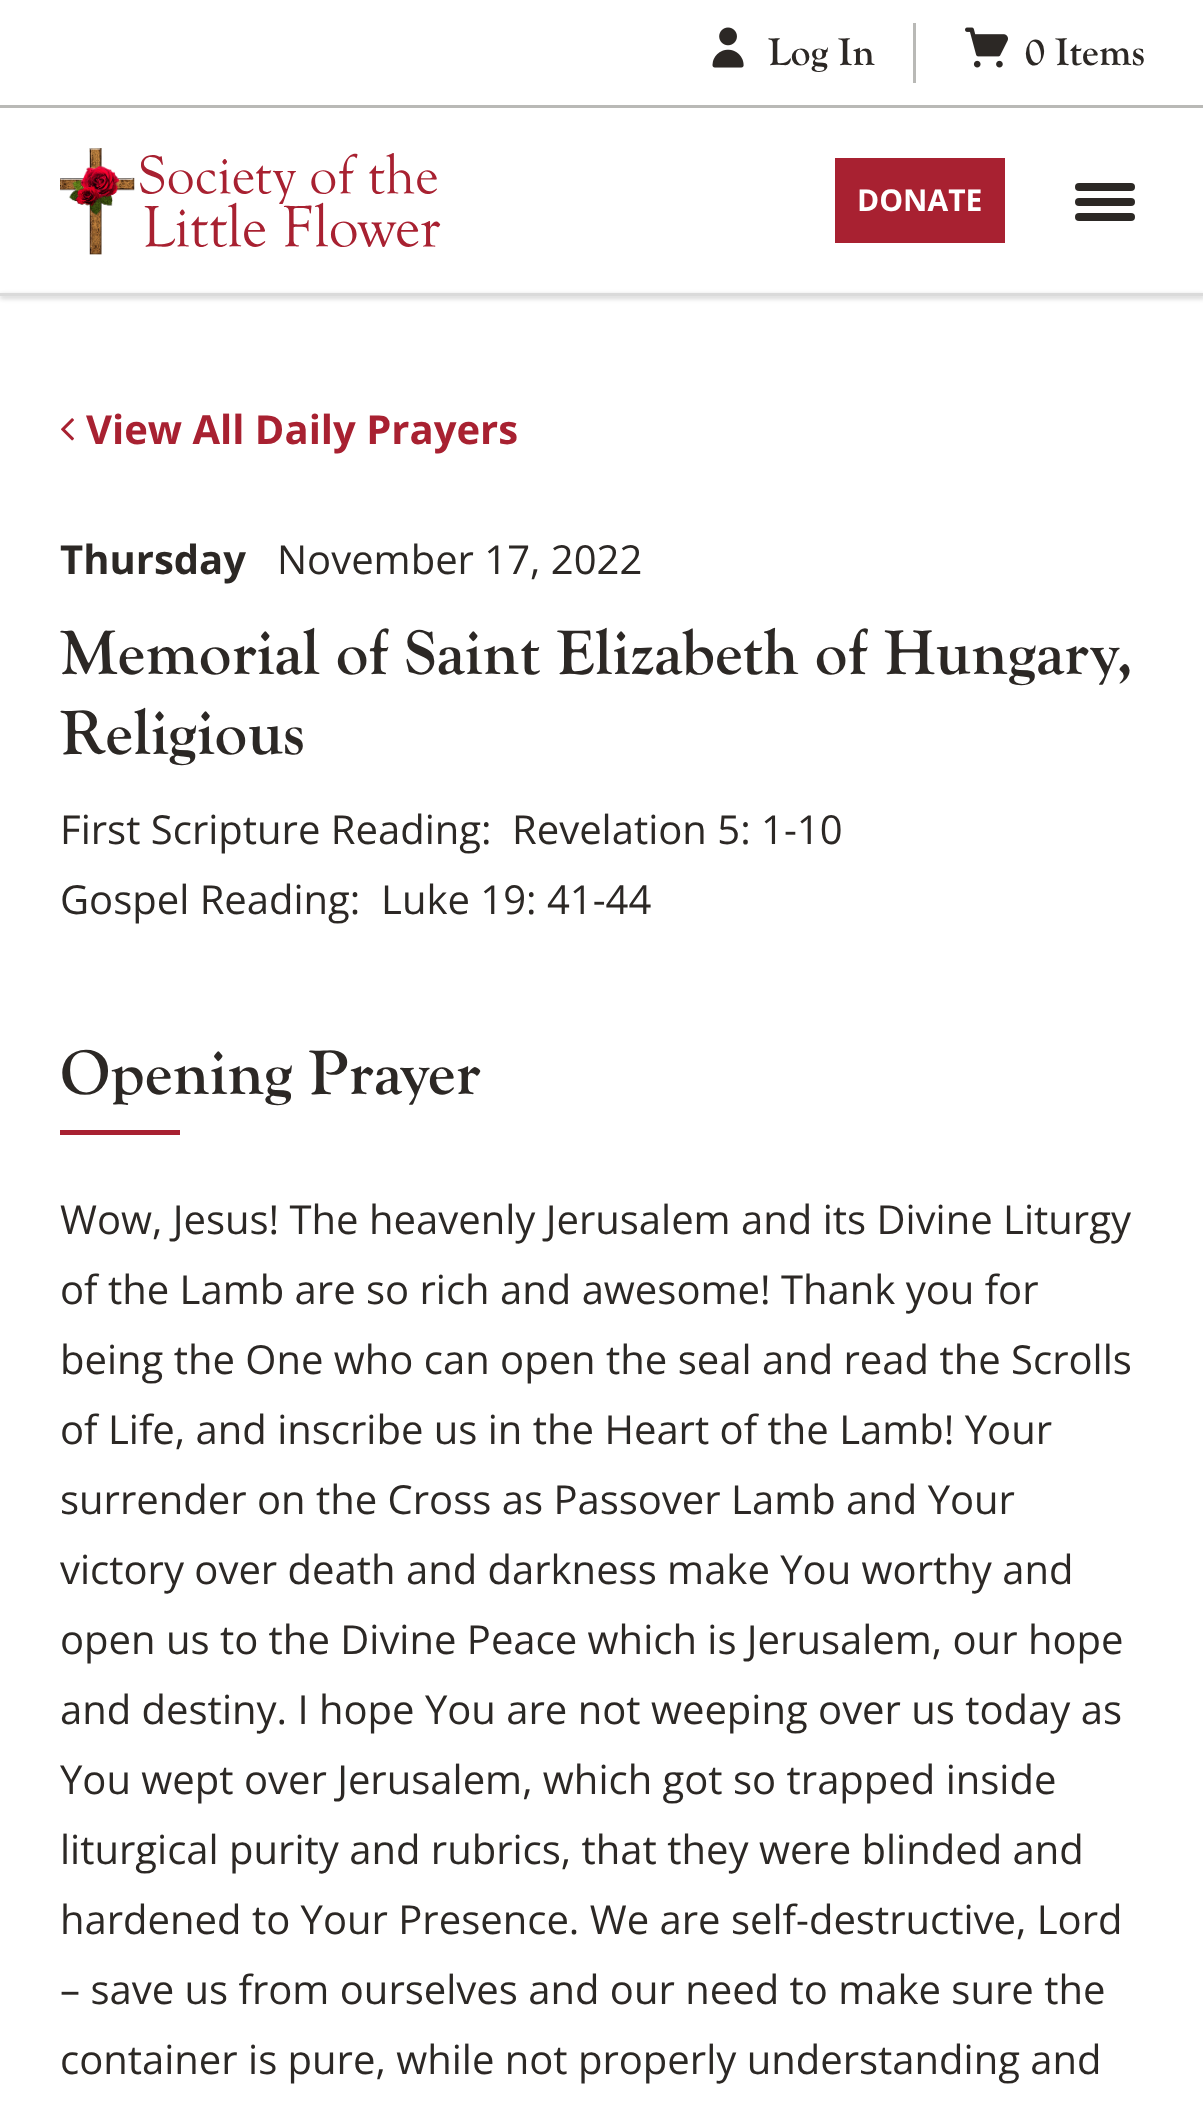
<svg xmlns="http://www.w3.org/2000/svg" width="1203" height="2119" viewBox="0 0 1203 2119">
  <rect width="100%" height="100%" fill="rgb(255,255,255)"/>
  <rect x="0" y="105" width="1203" height="3" fill="rgb(185,185,182)"/>
  <image x="712" y="27" width="32" height="41" href="pic1.png"/>
  <text x="768" y="65" font-family="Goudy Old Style" font-size="40" font-weight="bold" fill="rgb(44,40,37)">Log In</text>
  <rect x="913" y="23" width="3" height="60" fill="rgb(185,185,182)"/>
  <image x="965" y="27" width="43" height="41" href="pic2.png"/>
  <text x="1025" y="65" font-family="Goudy Old Style" font-size="40" font-weight="bold" fill="rgb(44,40,37)">0 Items</text>
  <image x="60" y="148" width="381" height="107" href="pic3.png"/>
  <rect x="1075" y="183" width="60" height="8" rx="4" fill="rgb(44,40,37)"/>
  <rect x="1075" y="198" width="60" height="8" rx="4" fill="rgb(44,40,37)"/>
  <rect x="1075" y="213" width="60" height="8" rx="4" fill="rgb(44,40,37)"/>
  <rect x="0" y="295" width="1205" height="3" fill="rgba(0,0,0,0.25)" filter="blur(2.5px)"/>
  <rect x="0" y="293" width="1203" height="3" fill="rgb(218,218,218)"/>
  <rect x="835" y="158" width="170" height="85" fill="rgb(168,33,49)"/>
  <text x="857" y="211" font-family="Open Sans" font-size="30" font-weight="bold" fill="rgb(255,255,255)">DONATE</text>
  <image x="61" y="418" width="13" height="23" href="pic4.png"/>
  <text x="86" y="444" font-family="Open Sans" font-size="40" font-weight="bold" fill="rgb(168,33,49)">View All Daily Prayers</text>
  <text x="60" y="574" font-family="Open Sans" font-size="40" font-weight="bold" fill="rgb(44,40,37)">Thursday</text>
  <text x="277" y="574" font-family="Open Sans" font-size="40" fill="rgb(44,40,37)">November 17, 2022</text>
  <g font-family="Goudy Old Style" font-size="65" font-weight="bold" fill="rgb(44,40,37)">
    <text>
      <tspan x="60" y="674">Memorial of Saint Elizabeth of Hungary,</tspan>
      <tspan x="60" y="754">Religious</tspan>
    </text>
  </g>
  <g font-family="Open Sans" font-size="40" fill="rgb(44,40,37)">
    <text x="60" y="844">First Scripture Reading:</text>
    <text x="512" y="844">Revelation 5: 1-10</text>
    <text x="60" y="914">Gospel Reading:</text>
    <text x="381" y="914">Luke 19: 41-44</text>
  </g>
  <text x="60" y="1094" font-family="Goudy Old Style" font-size="65" font-weight="bold" fill="rgb(44,40,37)">Opening Prayer</text>
  <rect x="60" y="1130" width="120" height="5" fill="rgb(168,33,49)"/>
  <g font-family="Open Sans" font-size="40" fill="rgb(44,40,37)">
    <text>
      <tspan x="60" y="1234">Wow, Jesus! The heavenly Jerusalem and its Divine Liturgy</tspan>
      <tspan x="60" y="1304">of the Lamb are so rich and awesome! Thank you for</tspan>
      <tspan x="60" y="1374">being the One who can open the seal and read the Scrolls</tspan>
      <tspan x="60" y="1444">of Life, and inscribe us in the Heart of the Lamb! Your</tspan>
      <tspan x="60" y="1514">surrender on the Cross as Passover Lamb and Your</tspan>
      <tspan x="60" y="1584">victory over death and darkness make You worthy and</tspan>
      <tspan x="60" y="1654">open us to the Divine Peace which is Jerusalem, our hope</tspan>
      <tspan x="60" y="1724">and destiny. I hope You are not weeping over us today as</tspan>
      <tspan x="60" y="1794">You wept over Jerusalem, which got so trapped inside</tspan>
      <tspan x="60" y="1864">liturgical purity and rubrics, that they were blinded and</tspan>
      <tspan x="60" y="1934">hardened to Your Presence. We are self-destructive, Lord</tspan>
      <tspan x="60" y="2004">– save us from ourselves and our need to make sure the</tspan>
      <tspan x="60" y="2074">container is pure, while not properly understanding and</tspan>
    </text>
  </g>
</svg>
